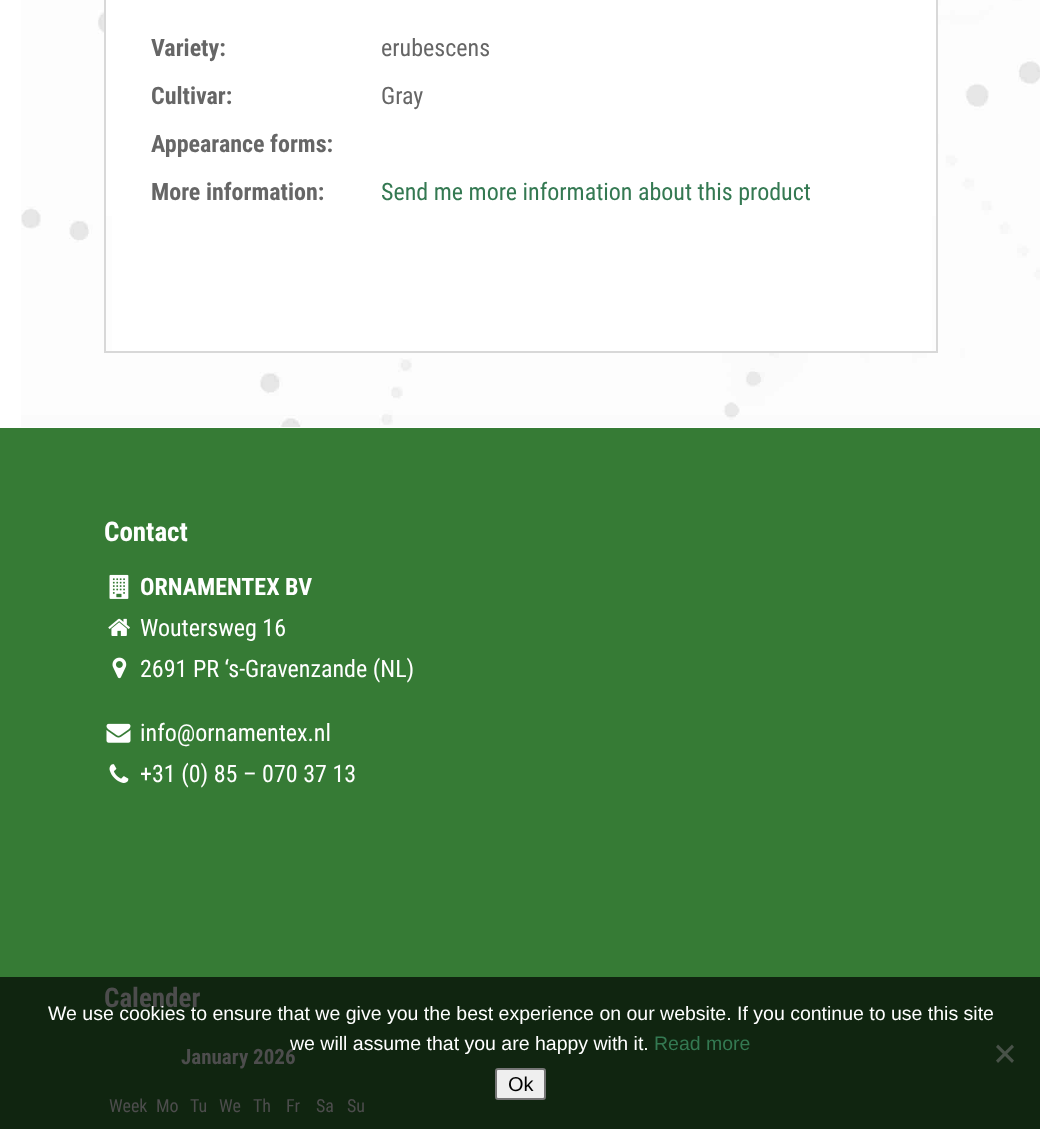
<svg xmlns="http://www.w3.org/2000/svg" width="1040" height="1129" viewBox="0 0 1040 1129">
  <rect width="100%" height="100%" fill="rgb(255,255,255)"/>
  <image x="21" y="0" width="1019" height="427" href="pic1.png"/>
  <rect x="106" y="0" width="830" height="216" fill="rgb(255,255,255)"/>
  <rect x="936" y="0" width="2" height="353" fill="rgb(216,216,216)"/>
  <rect x="104" y="0" width="2" height="216" fill="rgb(216,216,216)"/>
  <text x="151" y="56" font-family="Roboto Condensed" font-size="24" font-weight="bold" fill="rgb(102,102,102)">Variety:</text>
  <text x="381" y="56" font-family="Roboto Condensed" font-size="24" fill="rgb(102,102,102)">erubescens</text>
  <text x="151" y="104" font-family="Roboto Condensed" font-size="24" font-weight="bold" fill="rgb(102,102,102)">Cultivar:</text>
  <text x="381" y="104" font-family="Roboto Condensed" font-size="24" fill="rgb(102,102,102)">Gray</text>
  <g font-family="Roboto Condensed" font-size="24" font-weight="bold" fill="rgb(102,102,102)">
    <text x="151" y="152">Appearance forms:</text>
    <text x="151" y="200">More information:</text>
  </g>
  <text x="381" y="200" font-family="Roboto Condensed" font-size="24" fill="rgb(52,121,82)">Send me more information about this product</text>
  <rect x="112" y="216" width="820" height="135" fill="rgb(255,255,255)"/>
  <rect x="104" y="351" width="834" height="2" fill="rgb(216,216,216)"/>
  <rect x="104" y="216" width="2" height="137" fill="rgb(216,216,216)"/>
  <rect x="0" y="428" width="1040" height="549" fill="rgb(54,123,53)"/>
  <rect x="0" y="977" width="1040" height="152" fill="rgb(16,37,16)"/>
  <text x="104" y="541" font-family="Roboto Condensed" font-size="27" font-weight="bold" fill="rgb(255,255,255)">Contact</text>
  <image x="109" y="574" width="20" height="25" href="pic2.png"/>
  <text x="140" y="595" font-family="Roboto Condensed" font-size="24" font-weight="bold" fill="rgb(255,255,255)">ORNAMENTEX BV</text>
  <image x="108" y="618" width="22" height="18" href="pic3.png"/>
  <text x="140" y="636" font-family="Roboto Condensed" font-size="24" fill="rgb(255,255,255)">Woutersweg 16</text>
  <image x="112" y="657" width="15" height="22" href="pic4.png"/>
  <text x="140" y="677" font-family="Roboto Condensed" font-size="24" fill="rgb(255,255,255)">2691 PR ‘s-Gravenzande (NL)</text>
  <image x="106" y="723" width="25" height="20" href="pic5.png"/>
  <text x="140" y="741" font-family="Roboto Condensed" font-size="24" fill="rgb(255,255,255)">info@ornamentex.nl</text>
  <image x="109" y="764" width="20" height="19" href="pic6.png"/>
  <text x="140" y="782" font-family="Roboto Condensed" font-size="24" fill="rgb(255,255,255)">+31 (0) 85 – 070 37 13</text>
  <text x="104" y="1007" font-family="Roboto Condensed" font-size="27" font-weight="bold" fill="rgb(77,77,77)">Calender</text>
  <text x="181" y="1064" font-family="Roboto Condensed" font-size="21" font-weight="bold" fill="rgb(77,77,77)">January 2026</text>
  <g font-family="Roboto Condensed" font-size="18" fill="rgb(77,77,77)">
    <text x="109" y="1112">Week</text>
    <text x="156" y="1112">Mo</text>
    <text x="190" y="1112">Tu</text>
    <text x="219" y="1112">We</text>
    <text x="253" y="1112">Th</text>
    <text x="286" y="1112">Fr</text>
    <text x="316" y="1112">Sa</text>
    <text x="347" y="1112">Su</text>
  </g>
  <g font-family="Liberation Sans" font-size="19.5" fill="rgb(255,255,255)">
    <text x="48" y="1020">We use cookies to ensure that we give you the best experience on our website. If you continue to use this site</text>
    <text x="290" y="1050">we will assume that you are happy with it.</text>
  </g>
  <text x="654" y="1050" font-family="Liberation Sans" font-size="19.5" fill="rgb(52,121,82)">Read more</text>
  <path d="M1012 1044.5L1014 1047L998 1063L996 1060.5Z" fill="rgb(72,82,72)"/>
  <path d="M996 1047L998 1044.5L1014 1060.5L1012 1063Z" fill="rgb(72,82,72)"/>
  <rect x="496" y="1069" width="49" height="30" rx="2" fill="rgb(239,239,239)" stroke="rgb(118,118,118)" stroke-width="2"/>
  <text x="508" y="1091" font-family="Liberation Sans" font-size="20" fill="rgb(0,0,0)">Ok</text>
</svg>
